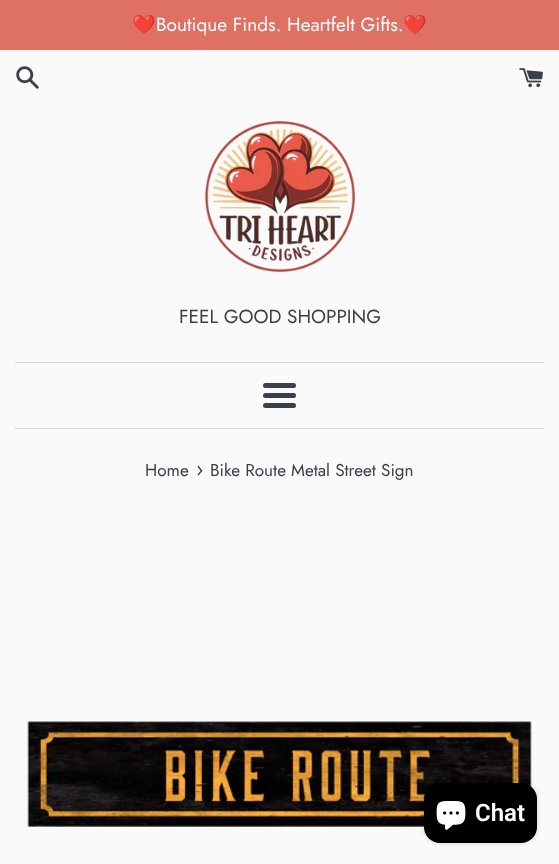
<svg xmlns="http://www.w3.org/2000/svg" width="559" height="864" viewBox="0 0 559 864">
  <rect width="100%" height="100%" fill="rgb(250,250,250)"/>
  <rect x="0" y="0" width="559" height="50" fill="rgb(222,112,100)"/>
  <text x="132" y="31" font-family="Noto Color Emoji" font-size="19" fill="rgb(254,254,254)">❤️</text>
  <text x="156" y="31" font-family="Jost" font-size="19" fill="rgb(254,254,254)">Boutique Finds. Heartfelt Gifts.</text>
  <text x="403" y="31" font-family="Noto Color Emoji" font-size="19" fill="rgb(254,254,254)">❤️</text>
  <image x="16" y="66" width="23" height="23" href="pic1.png"/>
  <image x="519" y="68" width="24" height="20" href="pic2.png"/>
  <image x="205" y="121" width="150" height="151" href="pic3.png"/>
  <text x="179" y="323" font-family="Jost" font-size="19" fill="rgb(60,64,73)">FEEL GOOD SHOPPING</text>
  <rect x="15" y="362" width="529" height="1" fill="rgb(215,216,210)"/>
  <rect x="263" y="383" width="33" height="5" rx="2.5" fill="rgb(60,64,73)"/>
  <rect x="263" y="393" width="33" height="5" rx="2.5" fill="rgb(60,64,73)"/>
  <rect x="263" y="403" width="33" height="5" rx="2.5" fill="rgb(60,64,73)"/>
  <rect x="15" y="428" width="529" height="1" fill="rgb(215,216,210)"/>
  <text x="145" y="476" font-family="Jost" font-size="17.1" fill="rgb(60,64,73)">Home</text>
  <text x="196" y="476" font-family="Jost" font-size="21" fill="rgb(60,64,73)">›</text>
  <text x="210" y="476" font-family="Jost" font-size="17.1" fill="rgb(60,64,73)">Bike Route Metal Street Sign</text>
  <image x="27" y="719" width="505" height="109" href="pic4.png"/>
  <rect x="424" y="783" width="113" height="60" rx="16" fill="rgba(0,0,0,0.15)" filter="blur(2.5px)"/>
  <rect x="424" y="783" width="113" height="60" rx="16" fill="rgb(0,0,0)"/>
  <image x="436" y="801" width="30" height="29" href="pic5.png"/>
  <text x="475" y="821" font-family="Roboto" font-size="24" font-weight="600" fill="rgb(254,254,254)">Chat</text>
</svg>
